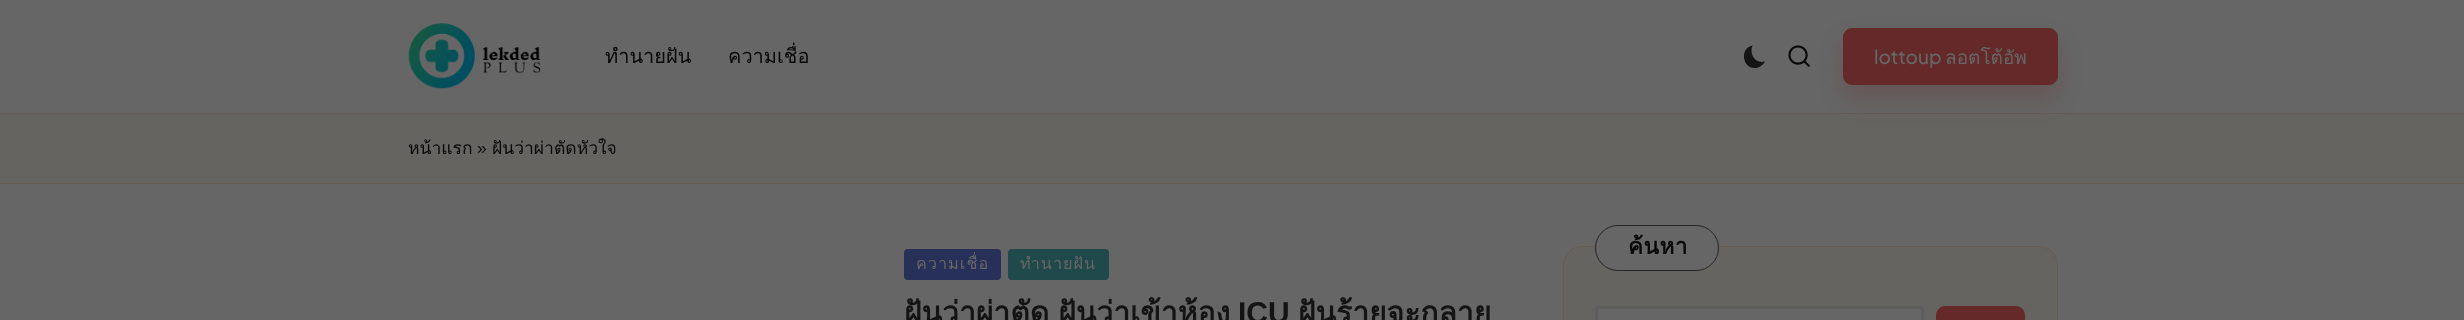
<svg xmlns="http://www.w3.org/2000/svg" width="2464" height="320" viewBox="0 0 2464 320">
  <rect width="100%" height="100%" fill="rgb(102,102,102)"/>
  <image x="408" y="23" width="133" height="66" href="pic1.png"/>
  <g font-family="Loma" font-size="20" fill="rgb(8,8,8)">
    <text x="605" y="63">ทำนายฝัน</text>
    <text x="728" y="63">ความเชื่อ</text>
  </g>
  <path d="M1765 61.5C1755 64 1749 54 1752.5 45.5C1738 48.5 1743.5 72 1758 67.5C1761 66.5 1763.5 64.5 1765 61.5Z" fill="rgb(20,20,20)"/>
  <image x="1788" y="45" width="22" height="22" href="pic2.png"/>
  <rect x="0" y="114" width="2464" height="69" fill="rgb(102,100,97)"/>
  <rect x="0" y="113" width="2464" height="1" fill="rgb(102,92,84)"/>
  <rect x="1843" y="40" width="215" height="58" rx="9" fill="rgba(101,41,42,0.27)" filter="blur(11px)"/>
  <rect x="1843.5" y="28.5" width="214" height="56" rx="8.5" fill="rgb(101,41,42)" stroke="rgb(101,41,42)"/>
  <text x="1874" y="64" font-family="Plus Jakarta Sans" font-size="19" font-weight="500" fill="rgb(102,102,102)">lottoup</text>
  <text x="1945" y="64" font-family="Loma" font-size="19" fill="rgb(102,102,102)">ลอตโต้อัพ</text>
  <rect x="0" y="183" width="2464" height="1" fill="rgb(102,92,84)"/>
  <text x="408" y="154" font-family="Loma" font-size="17.5" fill="rgb(8,8,8)">หน้าแรก</text>
  <text x="477" y="154" font-family="Liberation Sans" font-size="17.5" fill="rgb(8,8,8)">»</text>
  <text x="492" y="154" font-family="Loma" font-size="17.5" fill="rgb(8,8,8)">ฝันว่าผ่าตัดหัวใจ</text>
  <rect x="1563.5" y="246.5" width="494" height="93" rx="18.5" fill="rgb(102,100,97)" stroke="rgb(102,92,84)"/>
  <rect x="1595" y="225" width="124" height="46" rx="23" fill="rgb(102,102,102)"/>
  <rect x="1595.5" y="225.5" width="123" height="45" rx="22.5" fill="none" stroke="rgba(16,16,16,0.75)"/>
  <text x="1628" y="254" font-family="Loma" font-size="22.5" font-weight="bold" letter-spacing="0.5" fill="rgb(8,8,8)">ค้นหา</text>
  <rect x="1595" y="306" width="329" height="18" rx="4" fill="rgb(102,102,102)"/>
  <rect x="1596.5" y="307.5" width="326" height="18" rx="2.5" fill="none" stroke="rgba(76,76,76,0.3)" stroke-width="3"/>
  <rect x="1936.5" y="306.5" width="88" height="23" rx="8.5" fill="rgb(101,41,42)" stroke="rgb(101,41,42)"/>
  <rect x="904" y="249" width="97" height="31" rx="4" fill="rgb(39,48,89)"/>
  <text x="916" y="269" font-family="Loma" font-size="16.25" letter-spacing="1" fill="rgb(102,102,102)">ความเชื่อ</text>
  <rect x="1008" y="249" width="101" height="31" rx="4" fill="rgb(32,73,76)"/>
  <text x="1020" y="269" font-family="Loma" font-size="16.25" letter-spacing="1" fill="rgb(102,102,102)">ทำนายฝัน</text>
  <text x="904" y="323" word-spacing="-1" font-family="Loma" font-size="30" font-weight="bold" fill="rgb(20,20,20)">ฝันว่าผ่าตัด ฝันว่าเข้าห้อง</text>
  <text x="1238" y="323" font-family="Liberation Sans" font-size="30" font-weight="bold" fill="rgb(20,20,20)">ICU</text>
  <text x="1298" y="323" font-family="Loma" font-size="30" font-weight="bold" fill="rgb(20,20,20)">ฝันร้ายจะกลาย</text>
</svg>
